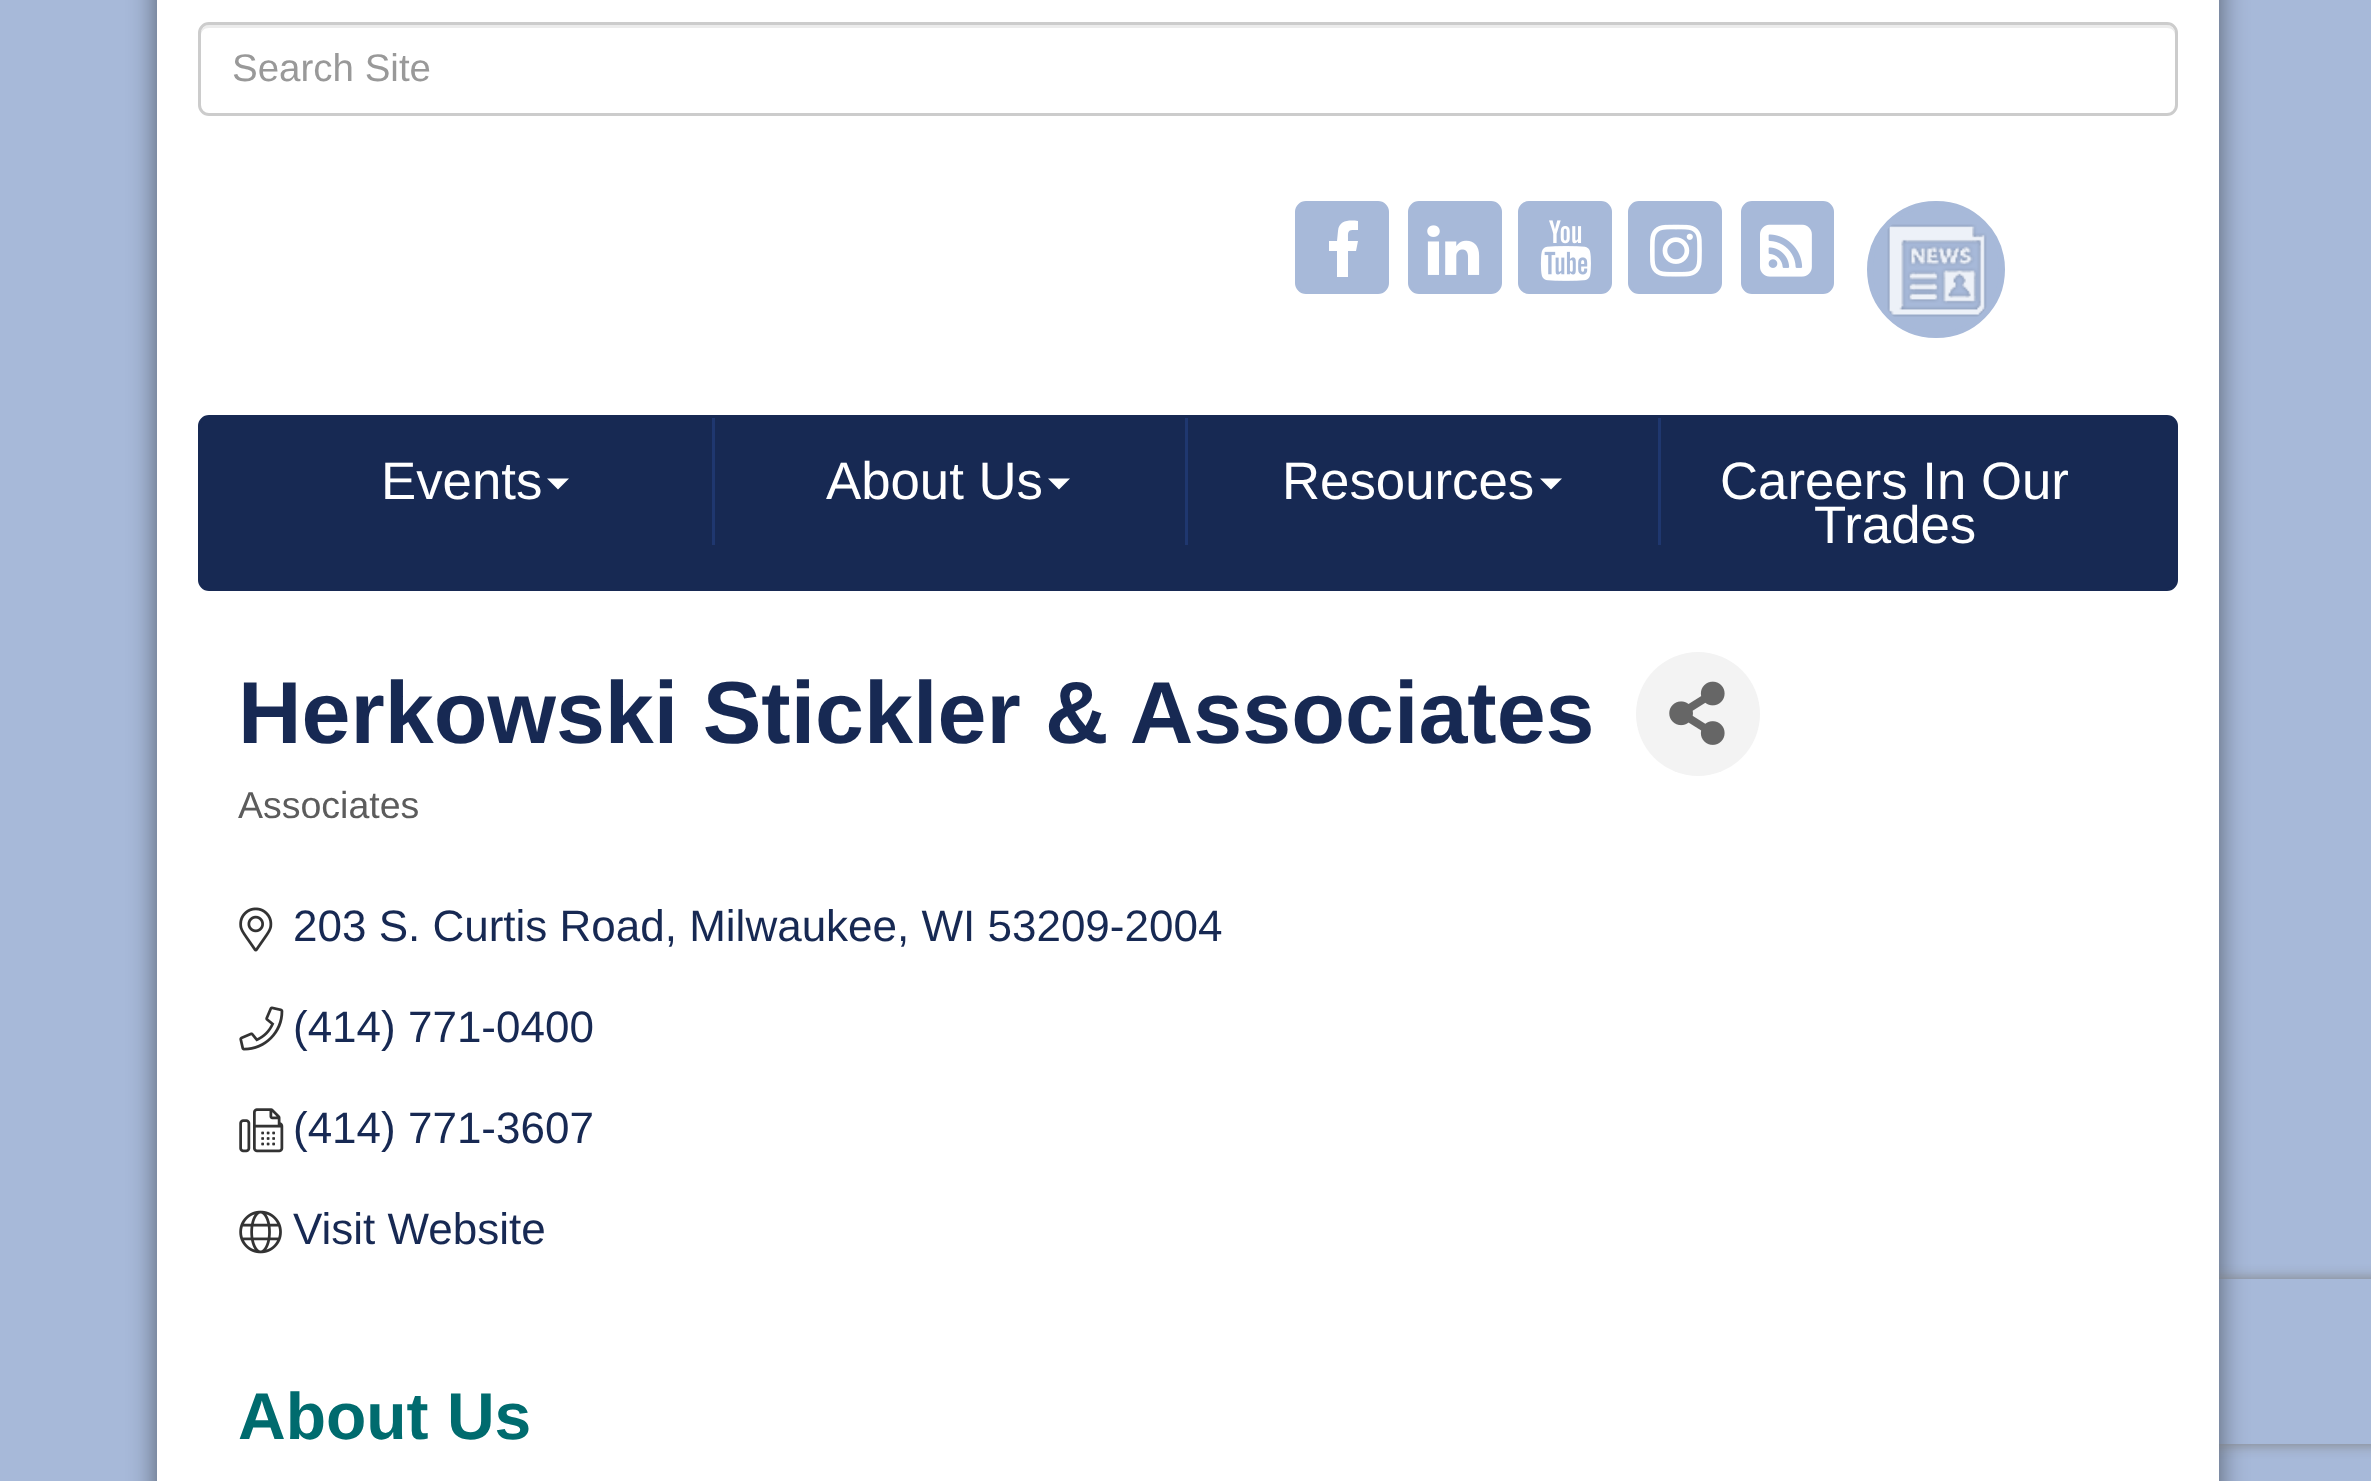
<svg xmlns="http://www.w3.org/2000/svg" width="2371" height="1481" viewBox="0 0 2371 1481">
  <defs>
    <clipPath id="clip1"><path d="M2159 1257H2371V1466H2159ZM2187 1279H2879C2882.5 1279 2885 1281.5 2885 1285V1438C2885 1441.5 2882.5 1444 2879 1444H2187C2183.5 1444 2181 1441.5 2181 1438V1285C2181 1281.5 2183.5 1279 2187 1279Z" clip-rule="evenodd"/></clipPath>
  </defs>
  <rect width="100%" height="100%" fill="rgb(167,185,217)"/>
  <rect x="157" y="-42" width="2062" height="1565" fill="rgba(0,0,0,0.5)" filter="blur(14px)"/>
  <g clip-path="url(#clip1)">
    <rect x="2181" y="1279" width="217" height="165" rx="6" fill="rgb(128,128,128)" filter="blur(7px)"/>
  </g>
  <rect x="157" y="0" width="2062" height="1481" fill="rgb(255,255,255)"/>
  <path d="M209 28H2167C2172 28 2175 31 2175 36V33C2175 29 2171 25 2167 25H209C205 25 201 29 201 33V36C201 31 204 28 209 28Z" fill="rgb(236,236,236)"/>
  <rect x="199.5" y="23.5" width="1977" height="91" rx="9.5" fill="none" stroke="rgb(204,204,204)" stroke-width="3"/>
  <text x="232" y="81" font-family="Liberation Sans" font-size="38.5" fill="rgb(153,153,153)">Search Site</text>
  <rect x="1296.5" y="202.5" width="91" height="90" rx="9.5" fill="rgb(167,185,217)" stroke="rgb(167,185,217)" stroke-width="3"/>
  <path d="M1358 221V230C1347 230 1348 230 1348 241H1358L1356 251H1348V277H1337V251H1329V241H1337L1338 231C1339 220 1349 220 1358 221Z" fill="rgb(255,255,255)"/>
  <rect x="1409.5" y="202.5" width="91" height="90" rx="9.5" fill="rgb(167,185,217)" stroke="rgb(167,185,217)" stroke-width="3"/>
  <image x="1427" y="225" width="53" height="50" href="pic1.png"/>
  <rect x="1519.5" y="202.5" width="91" height="90" rx="9.5" fill="rgb(167,185,217)" stroke="rgb(167,185,217)" stroke-width="3"/>
  <image x="1540" y="220" width="51" height="61" href="pic2.png"/>
  <rect x="1629.5" y="202.5" width="91" height="90" rx="9.5" fill="rgb(167,185,217)" stroke="rgb(167,185,217)" stroke-width="3"/>
  <image x="1650" y="224" width="52" height="53" href="pic3.png"/>
  <rect x="1742.5" y="202.5" width="90" height="90" rx="9.5" fill="rgb(167,185,217)" stroke="rgb(167,185,217)" stroke-width="3"/>
  <image x="1760" y="224" width="52" height="53" href="pic4.png"/>
  <rect x="1870" y="204" width="132" height="131" rx="65.5" fill="rgb(167,185,217)" stroke="rgb(167,185,217)" stroke-width="6"/>
  <image x="1887" y="224" width="100" height="93" href="pic5.png"/>
  <rect x="199.5" y="416.5" width="1977" height="173" rx="9.5" fill="rgb(23,41,83)" stroke="rgb(23,41,83)" stroke-width="3"/>
  <rect x="712" y="418" width="3" height="127" fill="rgb(31,55,111)"/>
  <text x="381" y="499" font-family="Liberation Sans" font-size="52.75" fill="rgb(255,255,255)">Events</text>
  <path d="M547 478.5H569L558 489.5Z" fill="rgb(255,255,255)"/>
  <rect x="1185" y="418" width="3" height="127" fill="rgb(31,55,111)"/>
  <text x="826" y="499" font-family="Liberation Sans" font-size="52.75" fill="rgb(255,255,255)">About Us</text>
  <path d="M1048 478.5H1070L1059 489.5Z" fill="rgb(255,255,255)"/>
  <rect x="1658" y="418" width="3" height="127" fill="rgb(31,55,111)"/>
  <text x="1282" y="499" font-family="Liberation Sans" font-size="52.75" fill="rgb(255,255,255)">Resources</text>
  <path d="M1540 478.5H1562L1551 489.5Z" fill="rgb(255,255,255)"/>
  <g font-family="Liberation Sans" font-size="52.75" fill="rgb(255,255,255)">
    <text x="1720" y="499">Careers In Our</text>
    <text x="1814" y="543">Trades</text>
  </g>
  <text x="238" y="743" font-family="Liberation Sans" font-size="88" font-weight="bold" fill="rgb(23,41,83)">Herkowski Stickler &amp; Associates</text>
  <circle cx="1698" cy="714" r="62" fill="rgb(243,243,243)"/>
  <image x="1669" y="681" width="56" height="64" href="pic6.png"/>
  <text x="238" y="818" font-family="Liberation Sans" font-size="37.5" fill="rgb(92,92,92)">Associates</text>
  <image x="239" y="907" width="34" height="45" href="pic7.png"/>
  <text x="293" y="941" font-family="Liberation Sans" font-size="44" fill="rgb(23,41,83)">203 S. Curtis Road, Milwaukee, WI 53209-2004</text>
  <image x="239" y="1006" width="45" height="45" href="pic8.png"/>
  <text x="293" y="1042" font-family="Liberation Sans" font-size="44" fill="rgb(23,41,83)">(414) 771-0400</text>
  <image x="239" y="1108" width="45" height="45" href="pic9.png"/>
  <text x="293" y="1143" font-family="Liberation Sans" font-size="44" fill="rgb(23,41,83)">(414) 771-3607</text>
  <image x="239" y="1210" width="43" height="44" href="pic10.png"/>
  <text x="293" y="1244" font-family="Liberation Sans" font-size="44" fill="rgb(23,41,83)">Visit Website</text>
  <text x="238" y="1439" font-family="Liberation Sans" font-size="66" font-weight="bold" fill="rgb(0,107,110)">About Us</text>
</svg>
